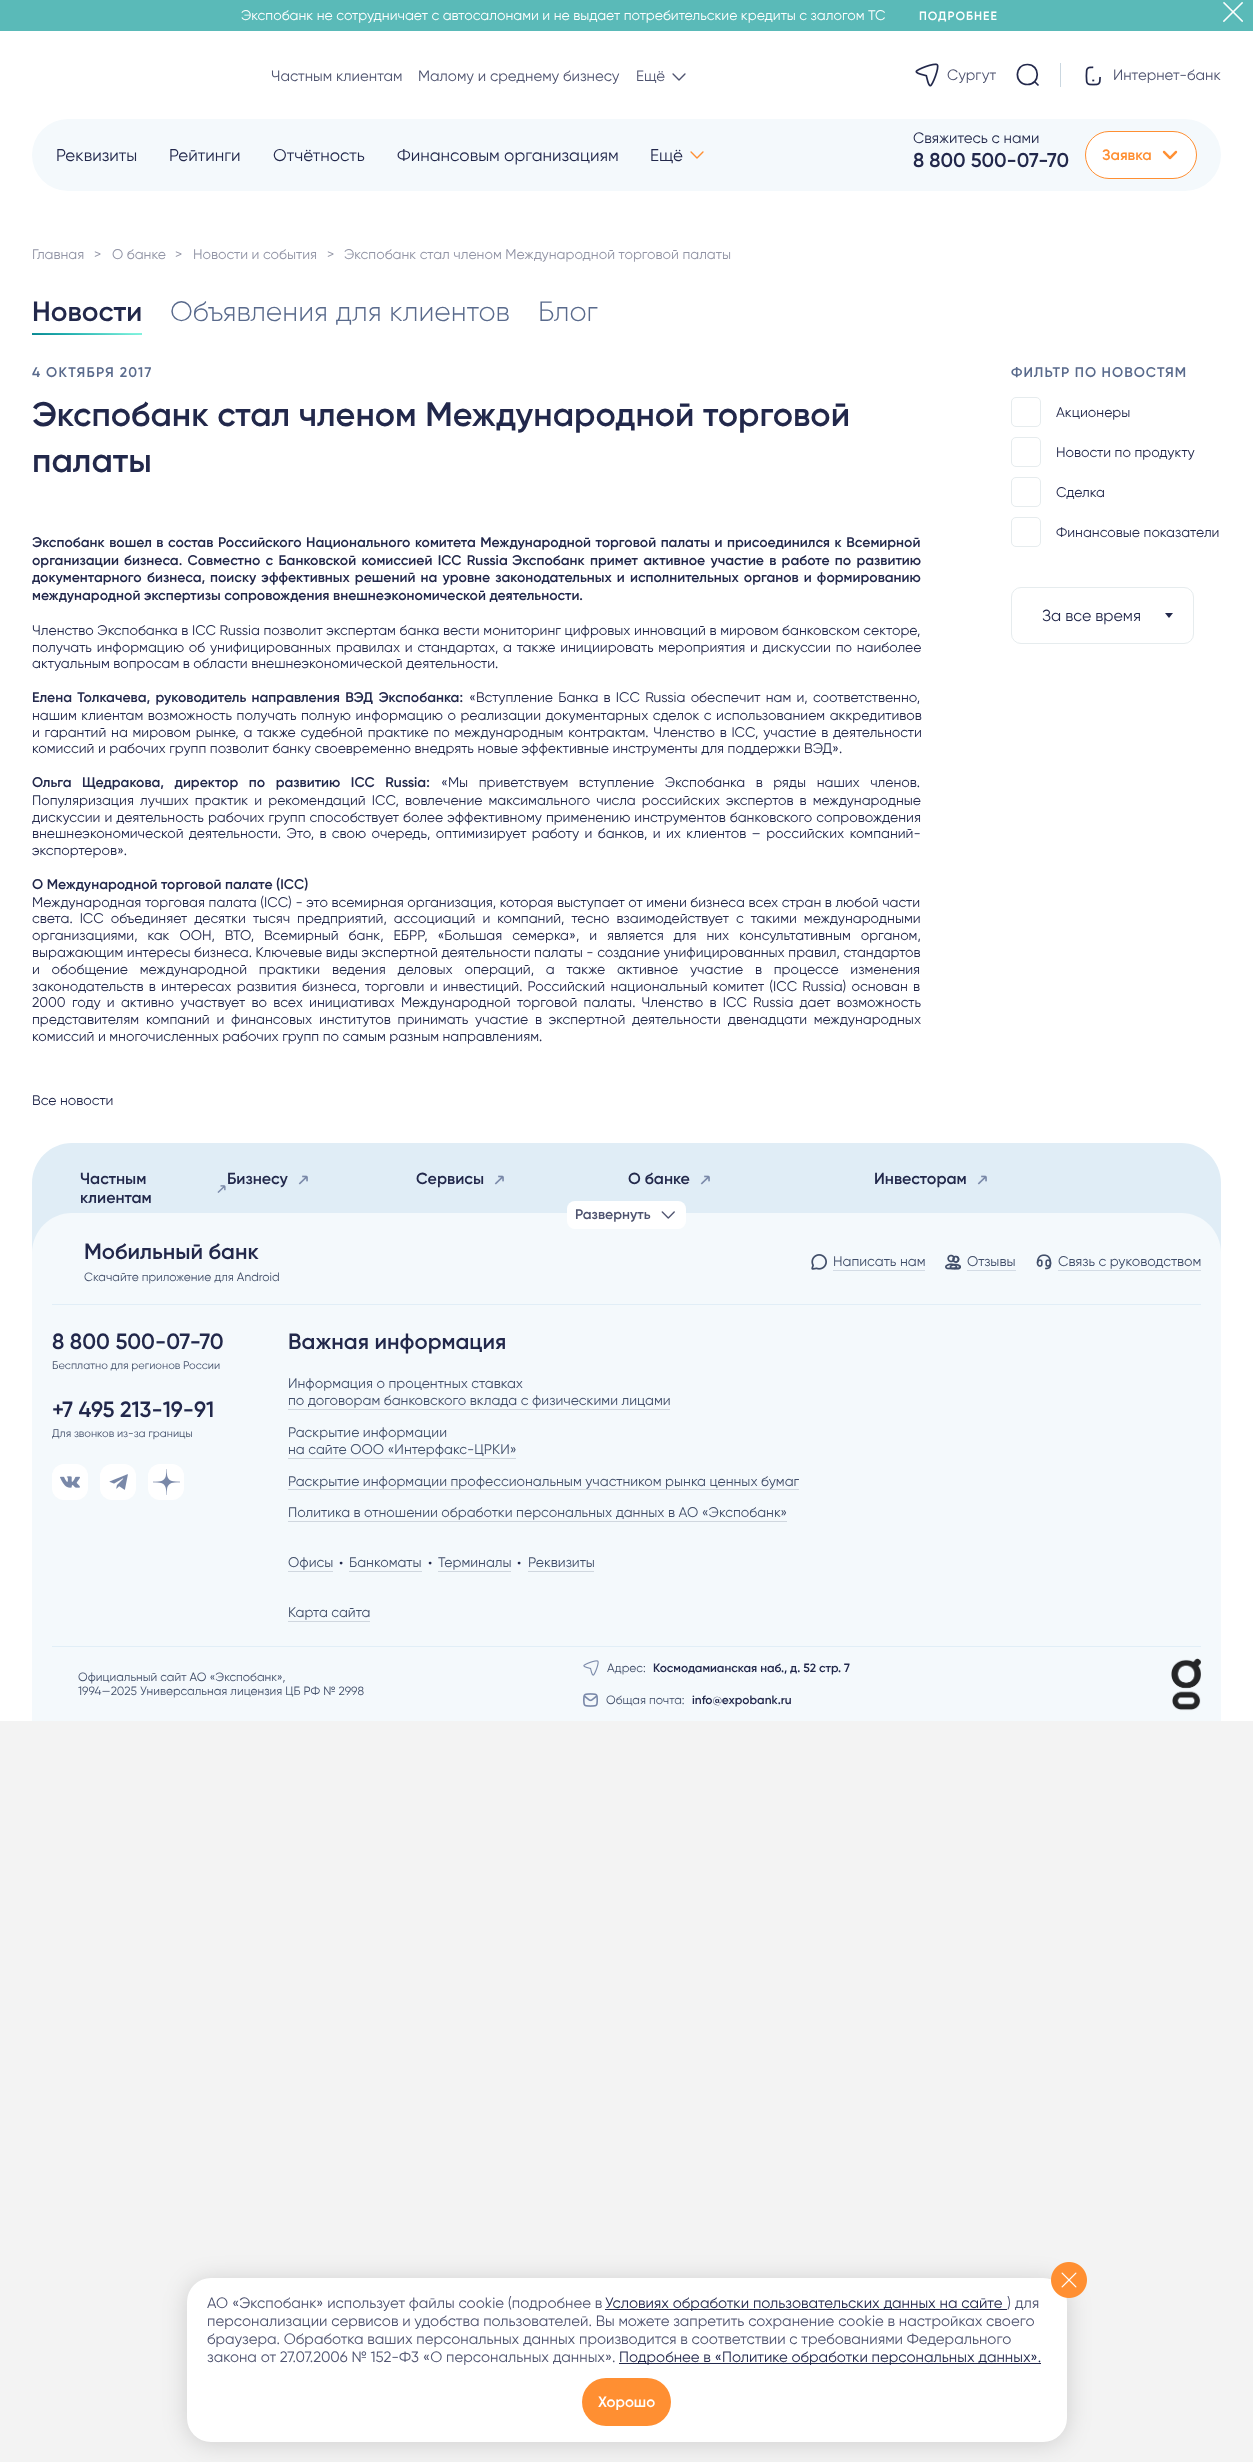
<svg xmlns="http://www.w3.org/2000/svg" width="1253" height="2462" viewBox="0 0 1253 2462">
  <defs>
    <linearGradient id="g1" gradientUnits="userSpaceOnUse" x1="86" y1="342" x2="88" y2="326"><stop offset="0" stop-color="rgb(6,127,140)"/><stop offset="0.34" stop-color="rgb(35,176,176)"/><stop offset="0.88" stop-color="rgb(128,241,221)"/></linearGradient>
  </defs>
  <rect width="100%" height="100%" fill="rgb(243,243,243)"/>
  <rect x="0" y="31" width="1253" height="1690" fill="rgb(255,255,255)"/>
  <rect x="0" y="0" width="1253" height="31" fill="rgb(90,186,184)"/>
  <text x="241" y="20" font-family="Gilroy" font-size="14" fill="rgb(255,255,255)">Экспобанк не сотрудничает с автосалонами и не выдает потребительские кредиты с залогом ТС</text>
  <text x="919" y="20" font-family="Gilroy" font-size="12" font-weight="600" letter-spacing="1" fill="rgb(255,255,255)">ПОДРОБНЕЕ</text>
  <image x="1223" y="2" width="20" height="20" href="pic1.png"/>
  <g font-family="Gilroy" font-size="15" fill="rgb(78,83,111)">
    <text x="271" y="81">Частным клиентам</text>
    <text x="418" y="81">Малому и среднему бизнесу</text>
    <text x="636" y="81">Ещё</text>
  </g>
  <image x="672" y="73" width="14" height="8" href="pic2.png"/>
  <image x="915" y="63" width="24" height="24" href="pic3.png"/>
  <text x="947" y="80" font-family="Gilroy" font-size="15" fill="rgb(78,83,111)">Сургут</text>
  <path d="M1027.5 84.5C1040.5 84.5 1040.5 64.5 1027.5 64.5C1014 64.5 1014 84.5 1027.5 84.5ZM1038.5 85.5L1034.5 81.5" fill="none" stroke="rgb(34,40,75)" stroke-width="1.7"/>
  <rect x="1060" y="63" width="1" height="24" fill="rgb(202,215,224)"/>
  <image x="1085" y="66" width="16" height="20" href="pic4.png"/>
  <text x="1113" y="80" font-family="Gilroy" font-size="15" fill="rgb(78,83,111)">Интернет-банк</text>
  <rect x="32" y="119" width="1189" height="72" rx="36" fill="rgb(244,249,252)"/>
  <g font-family="Gilroy" font-size="17" fill="rgb(34,40,75)">
    <text x="56" y="161">Реквизиты</text>
    <text x="169" y="161">Рейтинги</text>
    <text x="273" y="161">Отчётность</text>
    <text x="397" y="161">Финансовым организациям</text>
    <text x="650" y="161">Ещё</text>
  </g>
  <image x="690" y="151" width="14" height="8" href="pic5.png"/>
  <text x="913" y="143" font-family="Gilroy" font-size="15" fill="rgb(34,40,75)">Свяжитесь с нами</text>
  <text x="913" y="167" font-family="Gilroy" font-size="20" font-weight="600" fill="rgb(34,40,75)">8 800 500-07-70</text>
  <rect x="1085.5" y="131.5" width="111" height="47" rx="23.5" fill="rgb(255,255,255)" stroke="rgb(255,143,50)"/>
  <text x="1102" y="160" font-family="Gilroy" font-size="15" font-weight="600" fill="rgb(255,143,50)">Заявка</text>
  <image x="1162" y="150" width="16" height="10" href="pic6.png"/>
  <g font-family="Gilroy" font-size="14" fill="rgb(145,148,165)">
    <text x="32" y="259">Главная</text>
    <text x="94" y="259">&gt;</text>
    <text x="112" y="259">О банке</text>
    <text x="175" y="259">&gt;</text>
    <text x="193" y="259">Новости и события</text>
    <text x="327" y="259">&gt;</text>
    <text x="344" y="259">Экспобанк стал членом Международной торговой палаты</text>
  </g>
  <text x="32" y="321" font-family="Gilroy" font-size="28" font-weight="600" fill="rgb(34,40,75)">Новости</text>
  <rect x="32" y="333" width="110" height="2" fill="url(#g1)"/>
  <g font-family="Gilroy" font-size="28" font-weight="300" fill="rgb(89,106,140)">
    <text x="170" y="321">Объявления для клиентов</text>
    <text x="538" y="321">Блог</text>
  </g>
  <text x="32" y="377" font-family="Gilroy" font-size="14" font-weight="600" letter-spacing="1.25" fill="rgb(89,106,140)">4 ОКТЯБРЯ 2017</text>
  <g font-family="Gilroy" font-size="34" font-weight="600" fill="rgb(34,40,75)">
    <text>
      <tspan x="32" y="426">Экспобанк стал членом Международной торговой</tspan>
      <tspan x="32" y="472">палаты</tspan>
    </text>
  </g>
  <g font-family="Gilroy" font-size="14" font-weight="600" fill="rgb(34,40,75)">
    <text x="32" y="547" word-spacing="1">Экспобанк вошел в состав</text>
    <text x="218" y="547" word-spacing="1">Российского Национального комитета Международной торговой палаты и присоединился к Всемирной</text>
    <text x="32" y="565" word-spacing="1.75">организации бизнеса. Совместно с Банковской комиссией ICC Russia</text>
    <text x="512" y="565">Экспобанк</text>
    <text x="590" y="565" word-spacing="1.75">примет активное участие в работе по развитию</text>
    <text x="32" y="582">документарного</text>
    <text x="147" y="582">бизнеса,</text>
    <text x="210" y="582" word-spacing="1.6">поиску эффективных решений на уровне законодательных и исполнительных органов и формированию</text>
    <text x="32" y="600">международной экспертизы сопровождения внешнеэкономической деятельности.</text>
  </g>
  <g font-family="Gilroy" font-size="14" fill="rgb(34,40,75)">
    <text>
      <tspan x="32" y="635" word-spacing="0.1">Членство Экспобанка в ICC Russia позволит экспертам банка вести мониторинг цифровых инноваций в мировом банковском секторе,</tspan>
      <tspan x="32" y="652" word-spacing="1.2">получать информацию об унифицированных правилах и стандартах, а также инициировать мероприятия и дискуссии по наиболее</tspan>
      <tspan x="32" y="668">актуальным вопросам в области внешнеэкономической деятельности.</tspan>
    </text>
  </g>
  <text x="32" y="702" word-spacing="1.75" font-family="Gilroy" font-size="14" font-weight="600" fill="rgb(34,40,75)">Елена Толкачева, руководитель направления ВЭД Экспобанка:</text>
  <g font-family="Gilroy" font-size="14" fill="rgb(34,40,75)">
    <text x="469" y="702" word-spacing="1.75">«Вступление Банка в ICC Russia обеспечит нам и, соответственно,</text>
    <text>
      <tspan x="32" y="720" word-spacing="1">нашим клиентам возможность получать полную информацию о реализации документарных сделок с использованием аккредитивов</tspan>
      <tspan x="32" y="737" word-spacing="1.25">и гарантий на мировом рынке, а также судебной практике по международным контрактам. Членство в ICC, участие в деятельности</tspan>
      <tspan x="32" y="753">комиссий и рабочих групп позволит банку своевременно внедрять новые эффективные инструменты для поддержки ВЭД».</tspan>
    </text>
  </g>
  <text x="32" y="787" word-spacing="7" font-family="Gilroy" font-size="14" font-weight="600" fill="rgb(34,40,75)">Ольга Щедракова, директор по развитию ICC Russia:</text>
  <g font-family="Gilroy" font-size="14" fill="rgb(34,40,75)">
    <text x="441" y="787" word-spacing="7">«Мы приветствуем вступление Экспобанка в ряды наших членов.</text>
    <text>
      <tspan x="32" y="805" word-spacing="2.6">Популяризация лучших практик и рекомендаций ICC, вовлечение максимального числа российских экспертов в международные</tspan>
      <tspan x="32" y="822" word-spacing="0.5">дискуссии и деятельность рабочих групп способствует более эффективному применению инструментов банковского сопровождения</tspan>
      <tspan x="32" y="838" word-spacing="1.9">внешнеэкономической деятельности. Это, в свою очередь, оптимизирует работу и банков, и их клиентов – российских компаний-</tspan>
      <tspan x="32" y="855">экспортеров».</tspan>
    </text>
  </g>
  <text x="32" y="889" font-family="Gilroy" font-size="14" font-weight="600" fill="rgb(34,40,75)">O Международной торговой палате (ICC)</text>
  <g font-family="Gilroy" font-size="14" fill="rgb(34,40,75)">
    <text>
      <tspan x="32" y="907" word-spacing="0.1">Международная торговая палата (ICC) - это всемирная организация, которая выступает от имени бизнеса всех стран в любой части</tspan>
      <tspan x="32" y="923" word-spacing="3.5">света. ICC объединяет десятки тысяч предприятий, ассоциаций и компаний, тесно взаимодействует с такими международными</tspan>
      <tspan x="32" y="940" word-spacing="6.4">организациями, как ООН, ВТО, Всемирный банк, ЕБРР, «Большая семерка», и является для них консультативным органом,</tspan>
      <tspan x="32" y="957" word-spacing="0.1">выражающим интересы бизнеса. Ключевые виды экспертной деятельности палаты - создание унифицированных правил, стандартов</tspan>
      <tspan x="32" y="974" word-spacing="8.25">и обобщение международной практики ведения деловых операций, а также активное участие в процессе изменения</tspan>
      <tspan x="32" y="991" word-spacing="1.75">законодательств в интересах развития бизнеса, торговли и инвестиций. Российский национальный комитет (ICC Russia) основан в</tspan>
      <tspan x="32" y="1007" word-spacing="2.75">2000 году и активно участвует во всех инициативах Международной торговой палаты. Членство в ICC Russia дает возможность</tspan>
      <tspan x="32" y="1024" word-spacing="3.25">представителям компаний и финансовых институтов принимать участие в экспертной деятельности двенадцати международных</tspan>
      <tspan x="32" y="1041">комиссий и многочисленных рабочих групп по самым разным направлениям.</tspan>
    </text>
    <text x="32" y="1105">Все новости</text>
  </g>
  <text x="1011" y="377" font-family="Gilroy" font-size="14" font-weight="600" letter-spacing="1" fill="rgb(89,106,140)">ФИЛЬТР ПО НОВОСТЯМ</text>
  <rect x="1011.5" y="397.5" width="29" height="29" rx="4.5" fill="none" stroke="rgb(230,236,238)"/>
  <text x="1056" y="417" font-family="Gilroy" font-size="14" fill="rgb(34,40,75)">Акционеры</text>
  <rect x="1011.5" y="437.5" width="29" height="29" rx="4.5" fill="none" stroke="rgb(230,236,238)"/>
  <text x="1056" y="457" font-family="Gilroy" font-size="14" fill="rgb(34,40,75)">Новости по продукту</text>
  <rect x="1011.5" y="477.5" width="29" height="29" rx="4.5" fill="none" stroke="rgb(230,236,238)"/>
  <text x="1056" y="497" font-family="Gilroy" font-size="14" fill="rgb(34,40,75)">Сделка</text>
  <rect x="1011.5" y="517.5" width="29" height="29" rx="4.5" fill="none" stroke="rgb(230,236,238)"/>
  <text x="1056" y="537" font-family="Gilroy" font-size="14" fill="rgb(34,40,75)">Финансовые показатели</text>
  <rect x="1011.5" y="587.5" width="182" height="56" rx="9.5" fill="none" stroke="rgb(230,236,238)"/>
  <text x="1042" y="621" font-family="Gilroy" font-size="16" fill="rgb(34,40,75)">За все время</text>
  <path d="M1165 613H1173L1169 618Z" fill="rgb(34,40,75)"/>
  <path d="M72 1143H1181C1203 1143 1221 1161 1221 1183V1721H32V1183C32 1161 50 1143 72 1143Z" fill="rgb(224,237,246)"/>
  <text x="80" y="1184" font-family="Gilroy" font-size="16" font-weight="600" fill="rgb(34,40,75)">Частным</text>
  <image x="217" y="1185" width="9" height="8" href="pic7.png"/>
  <g font-family="Gilroy" font-size="16" font-weight="600" fill="rgb(34,40,75)">
    <text x="80" y="1203">клиентам</text>
    <text x="227" y="1184">Бизнесу</text>
  </g>
  <image x="298" y="1175" width="10" height="10" href="pic8.png"/>
  <text x="416" y="1184" font-family="Gilroy" font-size="16" font-weight="600" fill="rgb(34,40,75)">Сервисы</text>
  <image x="494" y="1175" width="10" height="10" href="pic8.png"/>
  <text x="628" y="1184" font-family="Gilroy" font-size="16" font-weight="600" fill="rgb(34,40,75)">О банке</text>
  <image x="700" y="1175" width="10" height="10" href="pic8.png"/>
  <text x="874" y="1184" font-family="Gilroy" font-size="16" font-weight="600" fill="rgb(34,40,75)">Инвесторам</text>
  <image x="977" y="1175" width="10" height="10" href="pic8.png"/>
  <path d="M72 1213H1181C1203 1213 1221 1231 1221 1253V1721H32V1253C32 1231 50 1213 72 1213Z" fill="rgb(244,249,252)"/>
  <rect x="567" y="1201" width="119" height="28" rx="8" fill="rgb(255,255,255)"/>
  <text x="575" y="1219" font-family="Gilroy" font-size="14" font-weight="600" fill="rgb(78,83,111)">Развернуть</text>
  <image x="661" y="1211" width="14" height="8" href="pic9.png"/>
  <rect x="52" y="1304" width="1149" height="1" fill="rgb(225,238,247)"/>
  <text x="84" y="1259" font-family="Gilroy" font-size="22" font-weight="600" fill="rgb(34,40,75)">Мобильный банк</text>
  <text x="84" y="1281" font-family="Gilroy" font-size="12" fill="rgb(65,78,105)">Скачайте приложение для Android</text>
  <image x="811" y="1254" width="16" height="16" href="pic10.png"/>
  <rect x="833" y="1270" width="92" height="1" fill="rgb(212,220,229)"/>
  <text x="833" y="1266" font-family="Gilroy" font-size="14" fill="rgb(65,78,105)">Написать нам</text>
  <image x="945" y="1254" width="16" height="16" href="pic11.png"/>
  <rect x="967" y="1270" width="49" height="1" fill="rgb(212,220,229)"/>
  <text x="967" y="1266" font-family="Gilroy" font-size="14" fill="rgb(65,78,105)">Отзывы</text>
  <image x="1036" y="1254" width="16" height="16" href="pic12.png"/>
  <rect x="1058" y="1270" width="143" height="1" fill="rgb(212,220,229)"/>
  <text x="1058" y="1266" font-family="Gilroy" font-size="14" fill="rgb(65,78,105)">Связь с руководством</text>
  <text x="52" y="1349" font-family="Gilroy" font-size="22" font-weight="600" fill="rgb(34,40,75)">8 800 500-07-70</text>
  <text x="52" y="1369" font-family="Gilroy" font-size="11" fill="rgb(65,78,105)">Бесплатно для регионов России</text>
  <text x="52" y="1417" font-family="Gilroy" font-size="22" font-weight="600" fill="rgb(34,40,75)">+7 495 213-19-91</text>
  <text x="52" y="1437" font-family="Gilroy" font-size="11" fill="rgb(65,78,105)">Для звонков из-за границы</text>
  <rect x="52" y="1464" width="36" height="36" rx="12" fill="rgb(255,255,255)"/>
  <image x="60" y="1476" width="20" height="12" href="pic13.png"/>
  <rect x="100" y="1464" width="36" height="36" rx="12" fill="rgb(255,255,255)"/>
  <image x="109" y="1474" width="19" height="16" href="pic14.png"/>
  <rect x="148" y="1464" width="36" height="36" rx="12" fill="rgb(255,255,255)"/>
  <image x="153" y="1469" width="27" height="26" href="pic15.png"/>
  <text x="288" y="1349" font-family="Gilroy" font-size="22" font-weight="600" fill="rgb(34,40,75)">Важная информация</text>
  <rect x="288" y="1409" width="382" height="1" fill="rgb(208,215,223)"/>
  <g font-family="Gilroy" font-size="14" fill="rgb(65,78,105)">
    <text>
      <tspan x="288" y="1388">Информация о процентных ставках</tspan>
      <tspan x="288" y="1405">по договорам банковского вклада с физическими лицами</tspan>
    </text>
  </g>
  <rect x="288" y="1458" width="228" height="1" fill="rgb(208,215,223)"/>
  <g font-family="Gilroy" font-size="14" fill="rgb(65,78,105)">
    <text>
      <tspan x="288" y="1437">Раскрытие информации</tspan>
      <tspan x="288" y="1454">на сайте ООО «Интерфакс-ЦРКИ»</tspan>
    </text>
  </g>
  <rect x="288" y="1489" width="511" height="1" fill="rgb(208,215,223)"/>
  <text x="288" y="1486" font-family="Gilroy" font-size="14" fill="rgb(65,78,105)">Раскрытие информации профессиональным участником рынка ценных бумаг</text>
  <rect x="288" y="1521" width="499" height="1" fill="rgb(208,215,223)"/>
  <text x="288" y="1517" font-family="Gilroy" font-size="14" fill="rgb(65,78,105)">Политика в отношении обработки персональных данных в АО «Экспобанк»</text>
  <rect x="288" y="1571" width="45" height="1" fill="rgb(208,215,223)"/>
  <text x="288" y="1567" font-family="Gilroy" font-size="14" fill="rgb(65,78,105)">Офисы</text>
  <text x="339" y="1568" font-family="Gilroy" font-size="14" fill="rgb(34,40,75)">•</text>
  <rect x="349" y="1571" width="73" height="1" fill="rgb(208,215,223)"/>
  <text x="349" y="1567" font-family="Gilroy" font-size="14" fill="rgb(65,78,105)">Банкоматы</text>
  <text x="428" y="1568" font-family="Gilroy" font-size="14" fill="rgb(34,40,75)">•</text>
  <rect x="438" y="1571" width="73" height="1" fill="rgb(208,215,223)"/>
  <text x="438" y="1567" font-family="Gilroy" font-size="14" fill="rgb(65,78,105)">Терминалы</text>
  <text x="517" y="1568" font-family="Gilroy" font-size="14" fill="rgb(34,40,75)">•</text>
  <rect x="528" y="1571" width="66" height="1" fill="rgb(208,215,223)"/>
  <text x="528" y="1567" font-family="Gilroy" font-size="14" fill="rgb(65,78,105)">Реквизиты</text>
  <rect x="288" y="1621" width="82" height="1" fill="rgb(208,215,223)"/>
  <text x="288" y="1617" font-family="Gilroy" font-size="14" fill="rgb(65,78,105)">Карта сайта</text>
  <rect x="52" y="1646" width="1149" height="1" fill="rgb(225,238,247)"/>
  <g font-family="Gilroy" font-size="12" fill="rgb(65,78,105)">
    <text>
      <tspan x="78" y="1681">Официальный сайт АО «Экспобанк»,</tspan>
      <tspan x="78" y="1695">1994—2025 Универсальная лицензия ЦБ РФ № 2998</tspan>
    </text>
  </g>
  <image x="583" y="1660" width="16" height="16" href="pic16.png"/>
  <text x="607" y="1672" font-family="Gilroy" font-size="12" fill="rgb(65,78,105)">Адрес:</text>
  <text x="653" y="1672" font-family="Gilroy" font-size="12" font-weight="600" fill="rgb(34,40,75)">Космодамианская наб., д. 52 стр. 7</text>
  <image x="583" y="1693" width="15" height="14" href="pic17.png"/>
  <text x="606" y="1704" font-family="Gilroy" font-size="12" fill="rgb(65,78,105)">Общая почта:</text>
  <text x="692" y="1704" font-family="Gilroy" font-size="12" font-weight="600" fill="rgb(34,40,75)">info@expobank.ru</text>
  <image x="1171" y="1658" width="30" height="53" href="pic18.png"/>
  <rect x="187" y="2280" width="880" height="164" rx="24" fill="rgba(0,0,0,0.15)" filter="blur(12px)"/>
  <rect x="187" y="2278" width="880" height="164" rx="24" fill="rgb(255,255,255)"/>
  <image x="1051" y="2262" width="36" height="36" href="pic19.png"/>
  <text x="207" y="2308" font-family="Gilroy" font-size="15" fill="rgb(78,83,111)">АО «Экспобанк» использует файлы cookie (подробнее в</text>
  <rect x="605" y="2309" width="402" height="1" fill="rgb(34,40,75)"/>
  <text x="605" y="2308" font-family="Gilroy" font-size="15" fill="rgb(34,40,75)">Условиях обработки пользовательских данных на сайте</text>
  <g font-family="Gilroy" font-size="15" fill="rgb(78,83,111)">
    <text x="1007" y="2308">) для</text>
    <text>
      <tspan x="207" y="2326">персонализации сервисов и удобства пользователей. Вы можете запретить сохранение cookie в настройках своего</tspan>
      <tspan x="207" y="2344">браузера. Обработка ваших персональных данных производится в соответствии с требованиями Федерального</tspan>
      <tspan x="207" y="2362">закона от 27.07.2006 № 152-Ф3 «О персональных данных».</tspan>
    </text>
  </g>
  <rect x="619" y="2363" width="422" height="1" fill="rgb(34,40,75)"/>
  <text x="619" y="2362" font-family="Gilroy" font-size="15" fill="rgb(34,40,75)">Подробнее в «Политике обработки персональных данных».</text>
  <rect x="582" y="2378" width="89" height="48" rx="24" fill="rgb(255,143,50)"/>
  <text x="598" y="2407" font-family="Gilroy" font-size="15" font-weight="600" fill="rgb(255,255,255)">Хорошо</text>
</svg>
